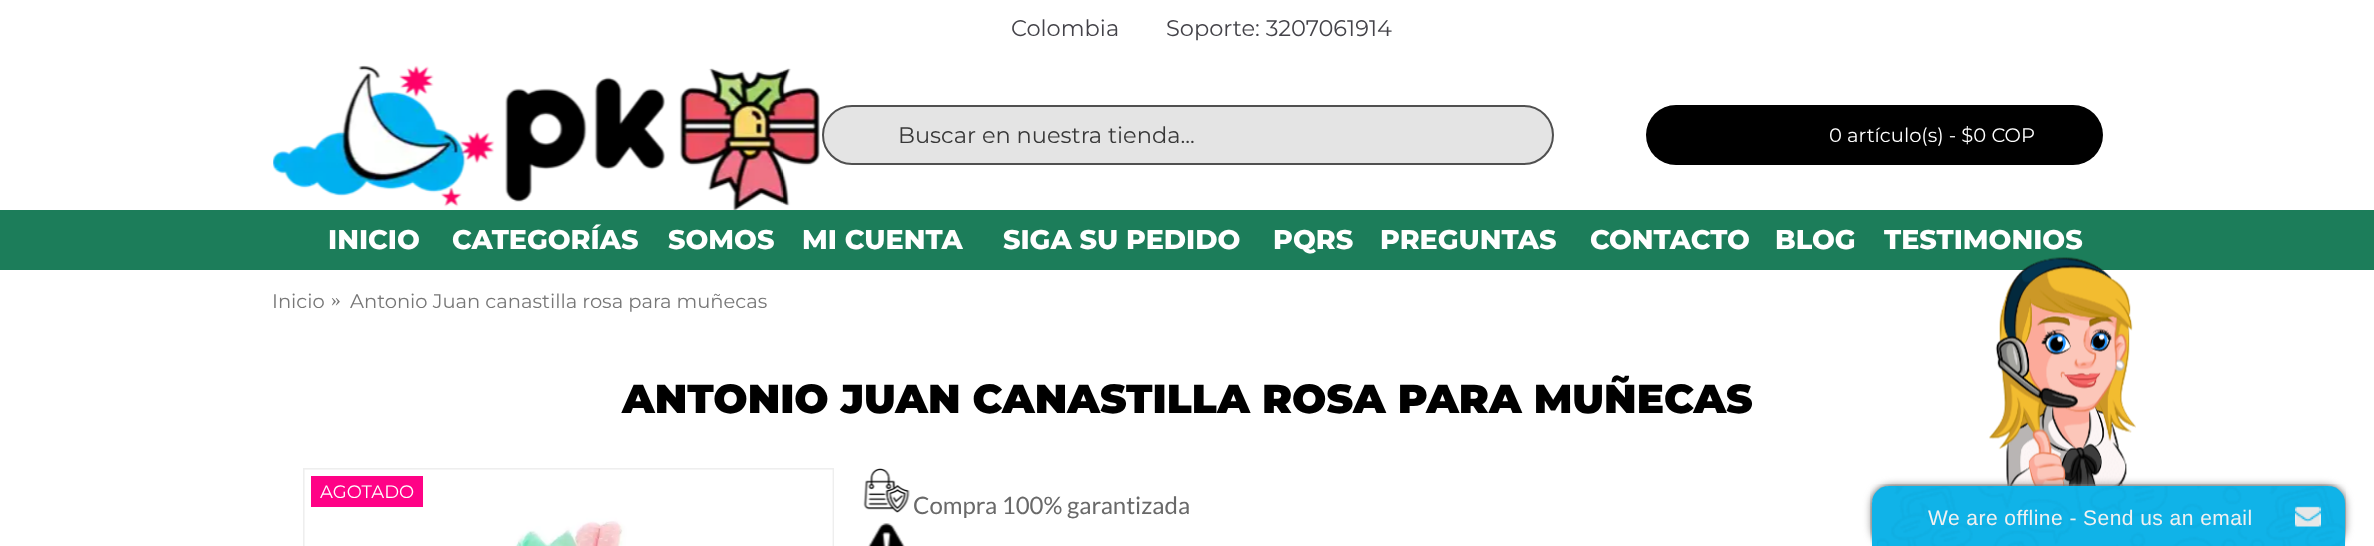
<svg xmlns="http://www.w3.org/2000/svg" width="2374" height="546" viewBox="0 0 2374 546">
  <rect width="100%" height="100%" fill="rgb(255,255,255)"/>
  <g font-family="Montserrat" font-size="22.5" fill="rgb(68,67,73)">
    <text x="1011" y="36">Colombia</text>
    <text x="1166" y="36">Soporte: 3207061914</text>
  </g>
  <image x="273" y="65" width="547" height="145" href="pic1.png"/>
  <rect x="823" y="106" width="730" height="58" rx="29" fill="rgb(228,228,228)" stroke="rgb(80,80,80)" stroke-width="2"/>
  <text x="898" y="143" font-family="Montserrat" font-size="22.5" fill="rgb(56,56,56)">Buscar en nuestra tienda...</text>
  <rect x="1646" y="105" width="457" height="60" rx="30" fill="rgb(0,0,0)"/>
  <text x="1829" y="142" font-family="Montserrat" font-size="19.5" fill="rgb(255,255,255)">0 artículo(s) - $0 COP</text>
  <rect x="0" y="210" width="2374" height="60" fill="rgb(28,125,90)"/>
  <g font-family="Montserrat" font-size="27" font-weight="800" fill="rgb(255,255,255)">
    <text x="328" y="249">INICIO</text>
    <text x="452" y="249">CATEGORÍAS</text>
    <text x="668" y="249">SOMOS</text>
    <text x="802" y="249">MI CUENTA</text>
    <text x="1003" y="249">SIGA SU PEDIDO</text>
    <text x="1273" y="249">PQRS</text>
    <text x="1380" y="249">PREGUNTAS</text>
    <text x="1590" y="249">CONTACTO</text>
    <text x="1775" y="249">BLOG</text>
    <text x="1884" y="249">TESTIMONIOS</text>
  </g>
  <text x="272" y="308" font-family="Montserrat" font-size="19.5" fill="rgb(119,119,119)">Inicio</text>
  <text x="331" y="306" font-family="Liberation Serif" font-size="19.5" fill="rgb(119,119,119)">»</text>
  <text x="350" y="308" font-family="Montserrat" font-size="19.5" fill="rgb(119,119,119)">Antonio Juan canastilla rosa para muñecas</text>
  <text x="622" y="413" font-family="Montserrat" font-size="40.5" font-weight="900" fill="rgb(0,0,0)">ANTONIO JUAN CANASTILLA ROSA PARA MUÑECAS</text>
  <rect x="304" y="469" width="529" height="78" fill="none" stroke="rgb(238,238,238)" stroke-width="2"/>
  <image x="304" y="469" width="529" height="77" href="pic2.png"/>
  <rect x="311" y="476" width="112" height="31" fill="rgb(255,2,134)"/>
  <text x="320" y="498" font-family="Montserrat" font-size="18" fill="rgb(255,255,255)">AGOTADO</text>
  <image x="863" y="468" width="47" height="45" href="pic3.png"/>
  <text x="913" y="514" font-family="Lato" font-size="24" fill="rgb(105,105,105)">Compra 100% garantizada</text>
  <image x="868" y="523" width="37" height="23" href="pic4.png"/>
  <image x="1989" y="257" width="147" height="229" href="pic5.png"/>
  <rect x="1872" y="486" width="473" height="60" rx="20" fill="rgb(119,119,119)" filter="blur(4px)"/>
  <image x="1870" y="484" width="476" height="61" href="pic6.png"/>
  <path d="M1889 486H2328C2337.5 486 2345 493.5 2345 503V546H1872V503C1872 493.5 1879.5 486 1889 486Z" fill="rgb(16,179,232)"/>
  <image x="1877" y="486" width="467" height="60" href="pic7.png"/>
  <text x="1928" y="525" font-family="Liberation Sans" font-size="21" letter-spacing="0.45" fill="rgb(241,241,241)">We are offline - Send us an email</text>
  <image x="2295" y="506" width="26" height="21" href="pic8.png"/>
</svg>
